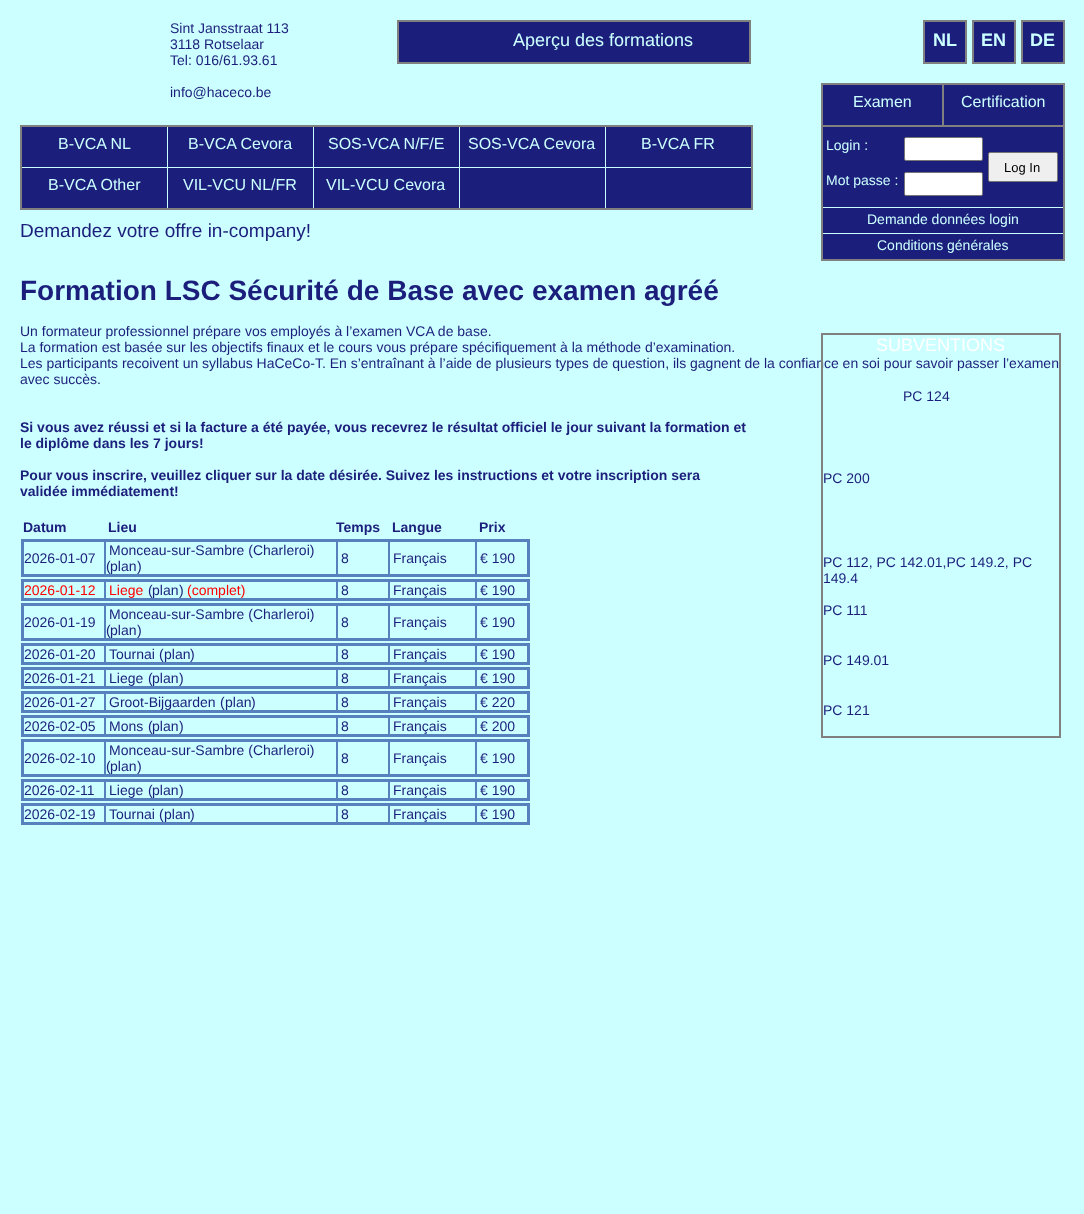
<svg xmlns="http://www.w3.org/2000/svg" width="1084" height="1214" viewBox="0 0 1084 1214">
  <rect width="100%" height="100%" fill="rgb(204,255,255)"/>
  <g font-family="Liberation Sans" font-size="14" fill="rgb(27,30,123)">
    <text>
      <tspan x="170" y="33">Sint Jansstraat 113</tspan>
      <tspan x="170" y="49">3118 Rotselaar</tspan>
      <tspan x="170" y="65">Tel: 016/61.93.61</tspan>
    </text>
    <text x="170" y="97">info@haceco.be</text>
  </g>
  <rect x="398" y="21" width="352" height="42" fill="rgb(27,30,123)" stroke="rgb(128,128,128)" stroke-width="2"/>
  <text x="513" y="46" font-family="Liberation Sans" font-size="18" fill="rgb(204,255,255)">Aperçu des formations</text>
  <rect x="924" y="21" width="42" height="42" fill="rgb(27,30,123)" stroke="rgb(128,128,128)" stroke-width="2"/>
  <text x="933" y="46" font-family="Liberation Sans" font-size="18" font-weight="bold" fill="rgb(204,255,255)">NL</text>
  <rect x="973" y="21" width="42" height="42" fill="rgb(27,30,123)" stroke="rgb(128,128,128)" stroke-width="2"/>
  <text x="981" y="46" font-family="Liberation Sans" font-size="18" font-weight="bold" fill="rgb(204,255,255)">EN</text>
  <rect x="1022" y="21" width="42" height="42" fill="rgb(27,30,123)" stroke="rgb(128,128,128)" stroke-width="2"/>
  <text x="1030" y="46" font-family="Liberation Sans" font-size="18" font-weight="bold" fill="rgb(204,255,255)">DE</text>
  <rect x="821" y="83" width="244" height="42" fill="rgb(128,128,128)"/>
  <rect x="823" y="85" width="119" height="40" fill="rgb(27,30,123)"/>
  <text x="853" y="107" font-family="Liberation Sans" font-size="16" fill="rgb(204,255,255)">Examen</text>
  <rect x="944" y="85" width="119" height="40" fill="rgb(27,30,123)"/>
  <text x="961" y="107" font-family="Liberation Sans" font-size="16" fill="rgb(204,255,255)">Certification</text>
  <rect x="21" y="126" width="731" height="83" fill="none" stroke="rgb(128,128,128)" stroke-width="2"/>
  <rect x="22" y="127" width="145" height="40" fill="rgb(27,30,123)"/>
  <text x="58" y="149" font-family="Liberation Sans" font-size="16" fill="rgb(204,255,255)">B-VCA NL</text>
  <rect x="168" y="127" width="145" height="40" fill="rgb(27,30,123)"/>
  <text x="188" y="149" font-family="Liberation Sans" font-size="16" fill="rgb(204,255,255)">B-VCA Cevora</text>
  <rect x="314" y="127" width="145" height="40" fill="rgb(27,30,123)"/>
  <text x="328" y="149" font-family="Liberation Sans" font-size="16" fill="rgb(204,255,255)">SOS-VCA N/F/E</text>
  <rect x="460" y="127" width="145" height="40" fill="rgb(27,30,123)"/>
  <text x="468" y="149" font-family="Liberation Sans" font-size="16" fill="rgb(204,255,255)">SOS-VCA Cevora</text>
  <rect x="606" y="127" width="145" height="40" fill="rgb(27,30,123)"/>
  <text x="641" y="149" font-family="Liberation Sans" font-size="16" fill="rgb(204,255,255)">B-VCA FR</text>
  <rect x="22" y="168" width="145" height="40" fill="rgb(27,30,123)"/>
  <text x="48" y="190" font-family="Liberation Sans" font-size="16" fill="rgb(204,255,255)">B-VCA Other</text>
  <rect x="168" y="168" width="145" height="40" fill="rgb(27,30,123)"/>
  <text x="183" y="190" font-family="Liberation Sans" font-size="16" fill="rgb(204,255,255)">VIL-VCU NL/FR</text>
  <rect x="314" y="168" width="145" height="40" fill="rgb(27,30,123)"/>
  <text x="326" y="190" font-family="Liberation Sans" font-size="16" fill="rgb(204,255,255)">VIL-VCU Cevora</text>
  <rect x="460" y="168" width="145" height="40" fill="rgb(27,30,123)"/>
  <rect x="606" y="168" width="145" height="40" fill="rgb(27,30,123)"/>
  <rect x="822" y="126" width="242" height="134" fill="none" stroke="rgb(128,128,128)" stroke-width="2"/>
  <rect x="823" y="127" width="240" height="80" fill="rgb(27,30,123)"/>
  <text x="826" y="150" font-family="Liberation Sans" font-size="14" fill="rgb(204,255,255)">Login :</text>
  <rect x="904.5" y="137.5" width="78" height="23" rx="1.5" fill="rgb(255,255,255)" stroke="rgb(118,118,118)"/>
  <rect x="988.5" y="152.5" width="69" height="29" rx="1.5" fill="rgb(239,239,239)" stroke="rgb(118,118,118)"/>
  <text x="1004" y="172" font-family="Liberation Sans" font-size="13" fill="rgb(0,0,0)">Log In</text>
  <text x="826" y="185" font-family="Liberation Sans" font-size="14" fill="rgb(204,255,255)">Mot passe :</text>
  <rect x="904.5" y="172.5" width="78" height="23" rx="1.5" fill="rgb(255,255,255)" stroke="rgb(118,118,118)"/>
  <rect x="823" y="208" width="240" height="25" fill="rgb(27,30,123)"/>
  <text x="867" y="224" font-family="Liberation Sans" font-size="14" fill="rgb(204,255,255)">Demande données login</text>
  <rect x="823" y="234" width="240" height="25" fill="rgb(27,30,123)"/>
  <text x="877" y="250" font-family="Liberation Sans" font-size="14" fill="rgb(204,255,255)">Conditions générales</text>
  <text x="20" y="237" font-family="Liberation Sans" font-size="19" fill="rgb(27,30,123)">Demandez votre offre in-company!</text>
  <text x="20" y="300" font-family="Liberation Sans" font-size="28" font-weight="bold" fill="rgb(27,30,123)">Formation LSC Sécurité de Base avec examen agréé</text>
  <g font-family="Liberation Sans" font-size="14" fill="rgb(27,30,123)">
    <text>
      <tspan x="20" y="336">Un formateur professionnel prépare vos employés à l’examen VCA de base.</tspan>
      <tspan x="20" y="352">La formation est basée sur les objectifs finaux et le cours vous prépare spécifiquement à la méthode d’examination.</tspan>
      <tspan x="20" y="368">Les participants recoivent un syllabus HaCeCo-T. En s’entraînant à l’aide de plusieurs types de question, ils gagnent de la confiance en soi pour savoir passer l’examen</tspan>
      <tspan x="20" y="384">avec succès.</tspan>
    </text>
  </g>
  <g font-family="Liberation Sans" font-size="14" font-weight="bold" fill="rgb(27,30,123)">
    <text>
      <tspan x="20" y="432">Si vous avez réussi et si la facture a été payée, vous recevrez le résultat officiel le jour suivant la formation et</tspan>
      <tspan x="20" y="448">le diplôme dans les 7 jours!</tspan>
    </text>
    <text>
      <tspan x="20" y="480">Pour vous inscrire, veuillez cliquer sur la date désirée. Suivez les instructions et votre inscription sera</tspan>
      <tspan x="20" y="496">validée immédiatement!</tspan>
    </text>
    <text x="23" y="532">Datum</text>
    <text x="108" y="532">Lieu</text>
    <text x="336" y="532">Temps</text>
    <text x="392" y="532">Langue</text>
    <text x="479" y="532">Prix</text>
  </g>
  <rect x="22" y="540" width="507" height="36" fill="none" stroke="rgb(87,129,189)" stroke-width="2"/>
  <rect x="23.5" y="541.5" width="81" height="33" fill="none" stroke="rgb(87,129,189)"/>
  <text x="24" y="563" font-family="Liberation Sans" font-size="14" fill="rgb(27,30,123)">2026-01-07</text>
  <rect x="105.5" y="541.5" width="231" height="33" fill="none" stroke="rgb(87,129,189)"/>
  <g font-family="Liberation Sans" font-size="14" fill="rgb(27,30,123)">
    <text x="109" y="555">Monceau-sur-Sambre (Charleroi)</text>
    <text x="106" y="571">(</text>
    <text x="110" y="571">plan</text>
    <text x="137" y="571">)</text>
  </g>
  <rect x="337.5" y="541.5" width="51" height="33" fill="none" stroke="rgb(87,129,189)"/>
  <text x="341" y="563" font-family="Liberation Sans" font-size="14" fill="rgb(27,30,123)">8</text>
  <rect x="389.5" y="541.5" width="86" height="33" fill="none" stroke="rgb(87,129,189)"/>
  <text x="393" y="563" font-family="Liberation Sans" font-size="14" fill="rgb(27,30,123)">Français</text>
  <rect x="476.5" y="541.5" width="51" height="33" fill="none" stroke="rgb(87,129,189)"/>
  <text x="480" y="563" font-family="Liberation Sans" font-size="14" fill="rgb(27,30,123)">€ 190</text>
  <rect x="22" y="580" width="507" height="20" fill="none" stroke="rgb(87,129,189)" stroke-width="2"/>
  <rect x="23.5" y="581.5" width="81" height="17" fill="none" stroke="rgb(87,129,189)"/>
  <text x="24" y="595" font-family="Liberation Sans" font-size="14" fill="rgb(255,0,0)">2026-01-12</text>
  <rect x="105.5" y="581.5" width="231" height="17" fill="none" stroke="rgb(87,129,189)"/>
  <text x="109" y="595" font-family="Liberation Sans" font-size="14" fill="rgb(255,0,0)">Liege</text>
  <g font-family="Liberation Sans" font-size="14" fill="rgb(27,30,123)">
    <text x="148" y="595">(</text>
    <text x="152" y="595">plan</text>
    <text x="179" y="595">)</text>
  </g>
  <text x="187" y="595" font-family="Liberation Sans" font-size="14" fill="rgb(255,0,0)">(complet)</text>
  <rect x="337.5" y="581.5" width="51" height="17" fill="none" stroke="rgb(87,129,189)"/>
  <text x="341" y="595" font-family="Liberation Sans" font-size="14" fill="rgb(27,30,123)">8</text>
  <rect x="389.5" y="581.5" width="86" height="17" fill="none" stroke="rgb(87,129,189)"/>
  <text x="393" y="595" font-family="Liberation Sans" font-size="14" fill="rgb(27,30,123)">Français</text>
  <rect x="476.5" y="581.5" width="51" height="17" fill="none" stroke="rgb(87,129,189)"/>
  <text x="480" y="595" font-family="Liberation Sans" font-size="14" fill="rgb(27,30,123)">€ 190</text>
  <rect x="22" y="604" width="507" height="36" fill="none" stroke="rgb(87,129,189)" stroke-width="2"/>
  <rect x="23.5" y="605.5" width="81" height="33" fill="none" stroke="rgb(87,129,189)"/>
  <text x="24" y="627" font-family="Liberation Sans" font-size="14" fill="rgb(27,30,123)">2026-01-19</text>
  <rect x="105.5" y="605.5" width="231" height="33" fill="none" stroke="rgb(87,129,189)"/>
  <g font-family="Liberation Sans" font-size="14" fill="rgb(27,30,123)">
    <text x="109" y="619">Monceau-sur-Sambre (Charleroi)</text>
    <text x="106" y="635">(</text>
    <text x="110" y="635">plan</text>
    <text x="137" y="635">)</text>
  </g>
  <rect x="337.5" y="605.5" width="51" height="33" fill="none" stroke="rgb(87,129,189)"/>
  <text x="341" y="627" font-family="Liberation Sans" font-size="14" fill="rgb(27,30,123)">8</text>
  <rect x="389.5" y="605.5" width="86" height="33" fill="none" stroke="rgb(87,129,189)"/>
  <text x="393" y="627" font-family="Liberation Sans" font-size="14" fill="rgb(27,30,123)">Français</text>
  <rect x="476.5" y="605.5" width="51" height="33" fill="none" stroke="rgb(87,129,189)"/>
  <text x="480" y="627" font-family="Liberation Sans" font-size="14" fill="rgb(27,30,123)">€ 190</text>
  <rect x="22" y="644" width="507" height="20" fill="none" stroke="rgb(87,129,189)" stroke-width="2"/>
  <rect x="23.5" y="645.5" width="81" height="17" fill="none" stroke="rgb(87,129,189)"/>
  <text x="24" y="659" font-family="Liberation Sans" font-size="14" fill="rgb(27,30,123)">2026-01-20</text>
  <rect x="105.5" y="645.5" width="231" height="17" fill="none" stroke="rgb(87,129,189)"/>
  <g font-family="Liberation Sans" font-size="14" fill="rgb(27,30,123)">
    <text x="109" y="659">Tournai</text>
    <text x="159" y="659">(</text>
    <text x="164" y="659">plan</text>
    <text x="190" y="659">)</text>
  </g>
  <rect x="337.5" y="645.5" width="51" height="17" fill="none" stroke="rgb(87,129,189)"/>
  <text x="341" y="659" font-family="Liberation Sans" font-size="14" fill="rgb(27,30,123)">8</text>
  <rect x="389.5" y="645.5" width="86" height="17" fill="none" stroke="rgb(87,129,189)"/>
  <text x="393" y="659" font-family="Liberation Sans" font-size="14" fill="rgb(27,30,123)">Français</text>
  <rect x="476.5" y="645.5" width="51" height="17" fill="none" stroke="rgb(87,129,189)"/>
  <text x="480" y="659" font-family="Liberation Sans" font-size="14" fill="rgb(27,30,123)">€ 190</text>
  <rect x="22" y="668" width="507" height="20" fill="none" stroke="rgb(87,129,189)" stroke-width="2"/>
  <rect x="23.5" y="669.5" width="81" height="17" fill="none" stroke="rgb(87,129,189)"/>
  <text x="24" y="683" font-family="Liberation Sans" font-size="14" fill="rgb(27,30,123)">2026-01-21</text>
  <rect x="105.5" y="669.5" width="231" height="17" fill="none" stroke="rgb(87,129,189)"/>
  <g font-family="Liberation Sans" font-size="14" fill="rgb(27,30,123)">
    <text x="109" y="683">Liege</text>
    <text x="148" y="683">(</text>
    <text x="152" y="683">plan</text>
    <text x="179" y="683">)</text>
  </g>
  <rect x="337.5" y="669.5" width="51" height="17" fill="none" stroke="rgb(87,129,189)"/>
  <text x="341" y="683" font-family="Liberation Sans" font-size="14" fill="rgb(27,30,123)">8</text>
  <rect x="389.5" y="669.5" width="86" height="17" fill="none" stroke="rgb(87,129,189)"/>
  <text x="393" y="683" font-family="Liberation Sans" font-size="14" fill="rgb(27,30,123)">Français</text>
  <rect x="476.5" y="669.5" width="51" height="17" fill="none" stroke="rgb(87,129,189)"/>
  <text x="480" y="683" font-family="Liberation Sans" font-size="14" fill="rgb(27,30,123)">€ 190</text>
  <rect x="22" y="692" width="507" height="20" fill="none" stroke="rgb(87,129,189)" stroke-width="2"/>
  <rect x="23.5" y="693.5" width="81" height="17" fill="none" stroke="rgb(87,129,189)"/>
  <text x="24" y="707" font-family="Liberation Sans" font-size="14" fill="rgb(27,30,123)">2026-01-27</text>
  <rect x="105.5" y="693.5" width="231" height="17" fill="none" stroke="rgb(87,129,189)"/>
  <g font-family="Liberation Sans" font-size="14" fill="rgb(27,30,123)">
    <text x="109" y="707">Groot-Bijgaarden</text>
    <text x="220" y="707">(</text>
    <text x="225" y="707">plan</text>
    <text x="251" y="707">)</text>
  </g>
  <rect x="337.5" y="693.5" width="51" height="17" fill="none" stroke="rgb(87,129,189)"/>
  <text x="341" y="707" font-family="Liberation Sans" font-size="14" fill="rgb(27,30,123)">8</text>
  <rect x="389.5" y="693.5" width="86" height="17" fill="none" stroke="rgb(87,129,189)"/>
  <text x="393" y="707" font-family="Liberation Sans" font-size="14" fill="rgb(27,30,123)">Français</text>
  <rect x="476.5" y="693.5" width="51" height="17" fill="none" stroke="rgb(87,129,189)"/>
  <text x="480" y="707" font-family="Liberation Sans" font-size="14" fill="rgb(27,30,123)">€ 220</text>
  <rect x="22" y="716" width="507" height="20" fill="none" stroke="rgb(87,129,189)" stroke-width="2"/>
  <rect x="23.5" y="717.5" width="81" height="17" fill="none" stroke="rgb(87,129,189)"/>
  <text x="24" y="731" font-family="Liberation Sans" font-size="14" fill="rgb(27,30,123)">2026-02-05</text>
  <rect x="105.5" y="717.5" width="231" height="17" fill="none" stroke="rgb(87,129,189)"/>
  <g font-family="Liberation Sans" font-size="14" fill="rgb(27,30,123)">
    <text x="109" y="731">Mons</text>
    <text x="148" y="731">(</text>
    <text x="152" y="731">plan</text>
    <text x="179" y="731">)</text>
  </g>
  <rect x="337.5" y="717.5" width="51" height="17" fill="none" stroke="rgb(87,129,189)"/>
  <text x="341" y="731" font-family="Liberation Sans" font-size="14" fill="rgb(27,30,123)">8</text>
  <rect x="389.5" y="717.5" width="86" height="17" fill="none" stroke="rgb(87,129,189)"/>
  <text x="393" y="731" font-family="Liberation Sans" font-size="14" fill="rgb(27,30,123)">Français</text>
  <rect x="476.5" y="717.5" width="51" height="17" fill="none" stroke="rgb(87,129,189)"/>
  <text x="480" y="731" font-family="Liberation Sans" font-size="14" fill="rgb(27,30,123)">€ 200</text>
  <rect x="22" y="740" width="507" height="36" fill="none" stroke="rgb(87,129,189)" stroke-width="2"/>
  <rect x="23.5" y="741.5" width="81" height="33" fill="none" stroke="rgb(87,129,189)"/>
  <text x="24" y="763" font-family="Liberation Sans" font-size="14" fill="rgb(27,30,123)">2026-02-10</text>
  <rect x="105.5" y="741.5" width="231" height="33" fill="none" stroke="rgb(87,129,189)"/>
  <g font-family="Liberation Sans" font-size="14" fill="rgb(27,30,123)">
    <text x="109" y="755">Monceau-sur-Sambre (Charleroi)</text>
    <text x="106" y="771">(</text>
    <text x="110" y="771">plan</text>
    <text x="137" y="771">)</text>
  </g>
  <rect x="337.5" y="741.5" width="51" height="33" fill="none" stroke="rgb(87,129,189)"/>
  <text x="341" y="763" font-family="Liberation Sans" font-size="14" fill="rgb(27,30,123)">8</text>
  <rect x="389.5" y="741.5" width="86" height="33" fill="none" stroke="rgb(87,129,189)"/>
  <text x="393" y="763" font-family="Liberation Sans" font-size="14" fill="rgb(27,30,123)">Français</text>
  <rect x="476.5" y="741.5" width="51" height="33" fill="none" stroke="rgb(87,129,189)"/>
  <text x="480" y="763" font-family="Liberation Sans" font-size="14" fill="rgb(27,30,123)">€ 190</text>
  <rect x="22" y="780" width="507" height="20" fill="none" stroke="rgb(87,129,189)" stroke-width="2"/>
  <rect x="23.5" y="781.5" width="81" height="17" fill="none" stroke="rgb(87,129,189)"/>
  <text x="24" y="795" font-family="Liberation Sans" font-size="14" fill="rgb(27,30,123)">2026-02-11</text>
  <rect x="105.5" y="781.5" width="231" height="17" fill="none" stroke="rgb(87,129,189)"/>
  <g font-family="Liberation Sans" font-size="14" fill="rgb(27,30,123)">
    <text x="109" y="795">Liege</text>
    <text x="148" y="795">(</text>
    <text x="152" y="795">plan</text>
    <text x="179" y="795">)</text>
  </g>
  <rect x="337.5" y="781.5" width="51" height="17" fill="none" stroke="rgb(87,129,189)"/>
  <text x="341" y="795" font-family="Liberation Sans" font-size="14" fill="rgb(27,30,123)">8</text>
  <rect x="389.5" y="781.5" width="86" height="17" fill="none" stroke="rgb(87,129,189)"/>
  <text x="393" y="795" font-family="Liberation Sans" font-size="14" fill="rgb(27,30,123)">Français</text>
  <rect x="476.5" y="781.5" width="51" height="17" fill="none" stroke="rgb(87,129,189)"/>
  <text x="480" y="795" font-family="Liberation Sans" font-size="14" fill="rgb(27,30,123)">€ 190</text>
  <rect x="22" y="804" width="507" height="20" fill="none" stroke="rgb(87,129,189)" stroke-width="2"/>
  <rect x="23.5" y="805.5" width="81" height="17" fill="none" stroke="rgb(87,129,189)"/>
  <text x="24" y="819" font-family="Liberation Sans" font-size="14" fill="rgb(27,30,123)">2026-02-19</text>
  <rect x="105.5" y="805.5" width="231" height="17" fill="none" stroke="rgb(87,129,189)"/>
  <g font-family="Liberation Sans" font-size="14" fill="rgb(27,30,123)">
    <text x="109" y="819">Tournai</text>
    <text x="159" y="819">(</text>
    <text x="164" y="819">plan</text>
    <text x="190" y="819">)</text>
  </g>
  <rect x="337.5" y="805.5" width="51" height="17" fill="none" stroke="rgb(87,129,189)"/>
  <text x="341" y="819" font-family="Liberation Sans" font-size="14" fill="rgb(27,30,123)">8</text>
  <rect x="389.5" y="805.5" width="86" height="17" fill="none" stroke="rgb(87,129,189)"/>
  <text x="393" y="819" font-family="Liberation Sans" font-size="14" fill="rgb(27,30,123)">Français</text>
  <rect x="476.5" y="805.5" width="51" height="17" fill="none" stroke="rgb(87,129,189)"/>
  <text x="480" y="819" font-family="Liberation Sans" font-size="14" fill="rgb(27,30,123)">€ 190</text>
  <rect x="822" y="334" width="238" height="403" fill="none" stroke="rgb(128,128,128)" stroke-width="2"/>
  <text x="876" y="351" font-family="Liberation Sans" font-size="18" fill="rgb(255,255,255)">SUBVENTIONS</text>
  <g font-family="Liberation Sans" font-size="14" fill="rgb(27,30,123)">
    <text x="903" y="401">PC 124</text>
    <text x="823" y="483">PC 200</text>
    <text>
      <tspan x="823" y="567">PC 112, PC 142.01,PC 149.2, PC</tspan>
      <tspan x="823" y="583">149.4</tspan>
    </text>
    <text x="823" y="615">PC 111</text>
    <text x="823" y="665">PC 149.01</text>
    <text x="823" y="715">PC 121</text>
  </g>
</svg>
